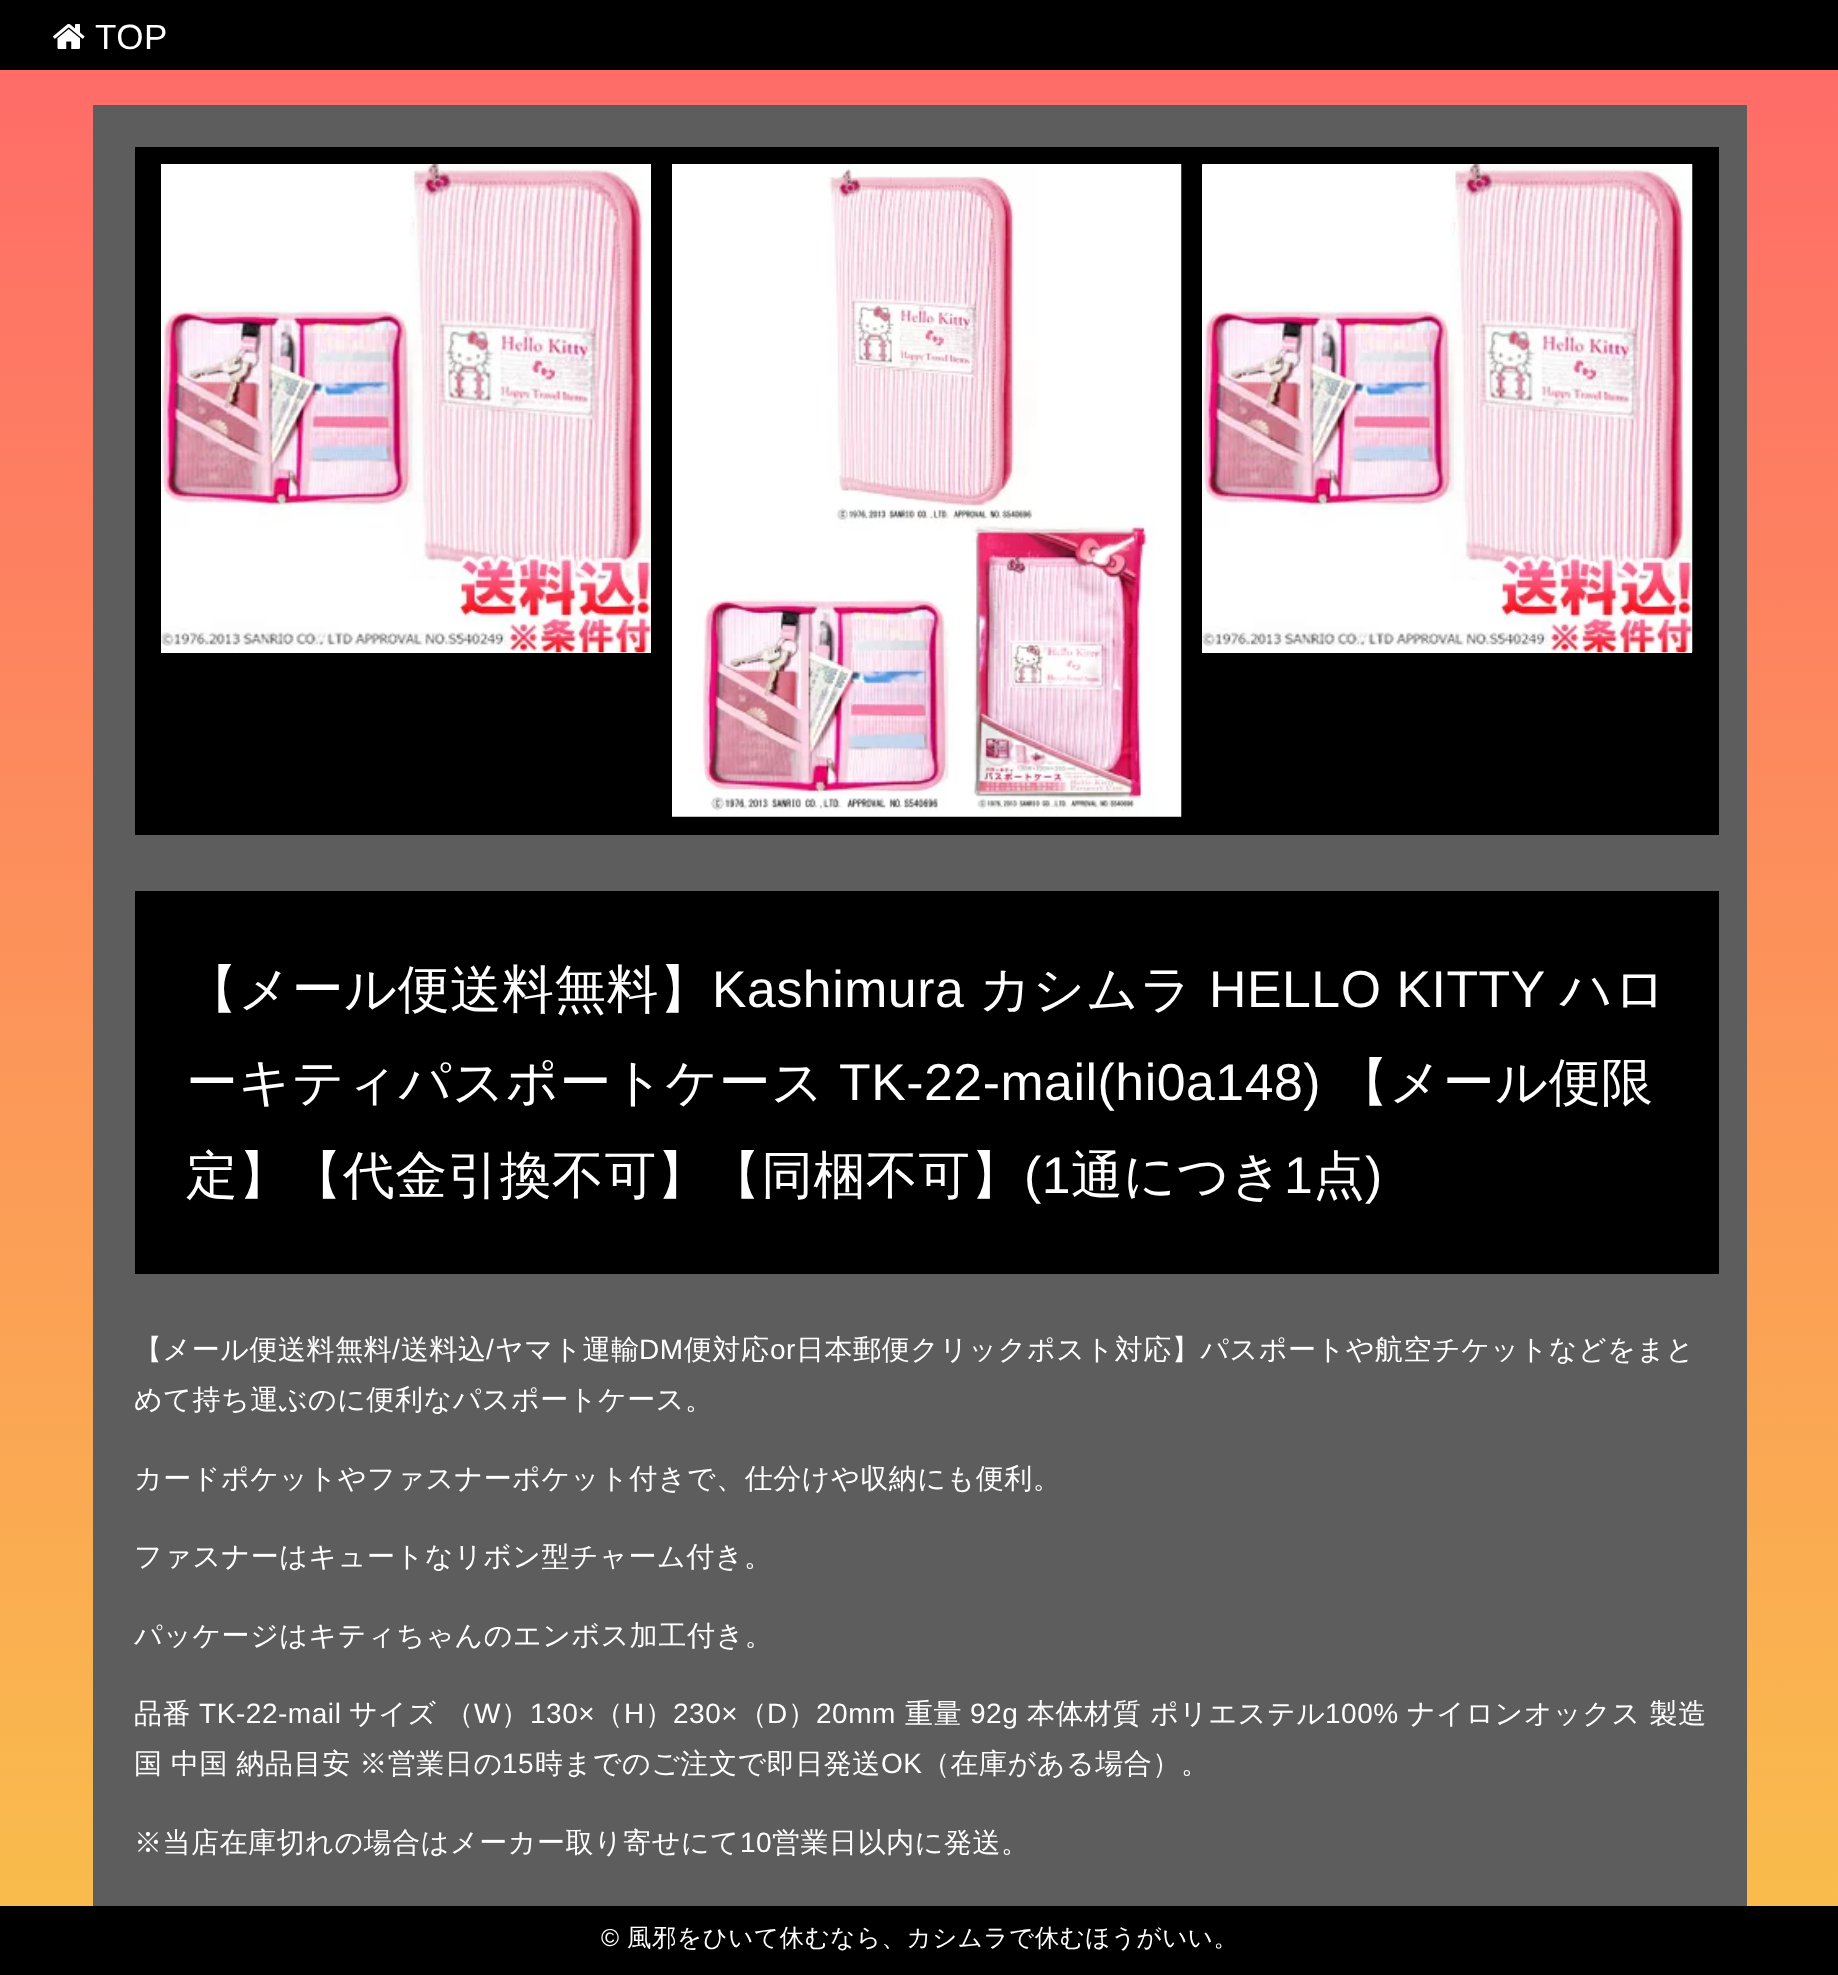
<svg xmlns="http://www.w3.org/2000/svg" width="1838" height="1975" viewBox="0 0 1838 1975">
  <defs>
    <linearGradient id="g1" gradientUnits="userSpaceOnUse" x1="920" y1="0" x2="920" y2="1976"><stop offset="0" stop-color="rgb(255,105,105)"/><stop offset="1" stop-color="rgb(249,191,75)"/></linearGradient>
  </defs>
  <rect width="100%" height="100%" fill="rgb(255,255,255)"/>
  <rect x="0" y="0" width="1838" height="70" fill="rgb(0,0,0)"/>
  <image x="53" y="23" width="32" height="26" href="pic1.png"/>
  <text x="95" y="49" font-family="Liberation Sans" font-size="35" letter-spacing="0.55" fill="rgb(255,255,255)">TOP</text>
  <rect x="0" y="70" width="1838" height="1836" fill="url(#g1)"/>
  <rect x="93" y="105" width="1654" height="1801" fill="rgb(93,93,94)"/>
  <rect x="135" y="147" width="1584" height="688" fill="rgb(0,0,0)"/>
  <rect x="161" y="652" width="490" height="1" fill="rgb(255,255,255)"/>
  <image x="161" y="164" width="490" height="489" href="pic2.png"/>
  <image x="672" y="164" width="510" height="653" href="pic3.png"/>
  <rect x="1202" y="165" width="490" height="488" fill="rgb(255,255,255)"/>
  <image x="1202" y="164" width="491" height="489" href="pic4.png"/>
  <rect x="135" y="891" width="1584" height="383" fill="rgb(0,0,0)"/>
  <text x="186" y="1007" font-family="WenQuanYi Zen Hei" font-size="51.75" font-weight="500" letter-spacing="0.55" fill="rgb(255,255,255)">【メール便送料無料】</text>
  <text x="712" y="1007" font-family="Liberation Sans" font-size="51.75" letter-spacing="0.55" fill="rgb(255,255,255)">Kashimura</text>
  <text x="979" y="1007" font-family="WenQuanYi Zen Hei" font-size="51.75" font-weight="500" letter-spacing="0.55" fill="rgb(255,255,255)">カシムラ</text>
  <text x="1209" y="1007" font-family="Liberation Sans" font-size="51.75" letter-spacing="0.55" fill="rgb(255,255,255)">HELLO KITTY</text>
  <g font-family="WenQuanYi Zen Hei" font-size="51.75" font-weight="500" letter-spacing="0.55" fill="rgb(255,255,255)">
    <text x="1560" y="1007">ハロ</text>
    <text x="186" y="1100">ーキティパスポートケース</text>
  </g>
  <text x="839" y="1100" font-family="Liberation Sans" font-size="51.75" letter-spacing="0.55" fill="rgb(255,255,255)">TK-22-mail(hi0a148)</text>
  <g font-family="WenQuanYi Zen Hei" font-size="51.75" font-weight="500" letter-spacing="0.55" fill="rgb(255,255,255)">
    <text x="1337" y="1100">【メール便限</text>
    <text x="186" y="1193">定】【代金引換不可】【同梱不可】</text>
  </g>
  <text x="1024" y="1193" font-family="Liberation Sans" font-size="51.75" letter-spacing="0.55" fill="rgb(255,255,255)">(1</text>
  <text x="1071" y="1193" font-family="WenQuanYi Zen Hei" font-size="51.75" font-weight="500" letter-spacing="0.55" fill="rgb(255,255,255)">通につき</text>
  <text x="1284" y="1193" font-family="Liberation Sans" font-size="51.75" letter-spacing="0.55" fill="rgb(255,255,255)">1</text>
  <text x="1313" y="1193" font-family="WenQuanYi Zen Hei" font-size="51.75" font-weight="500" letter-spacing="0.55" fill="rgb(255,255,255)">点</text>
  <text x="1365" y="1193" font-family="Liberation Sans" font-size="51.75" letter-spacing="0.55" fill="rgb(255,255,255)">)</text>
  <text x="134" y="1359" font-family="WenQuanYi Zen Hei" font-size="28" font-weight="500" letter-spacing="0.55" fill="rgb(255,255,255)">【メール便送料無料</text>
  <text x="392" y="1359" font-family="Liberation Sans" font-size="28" letter-spacing="0.55" fill="rgb(255,255,255)">/</text>
  <text x="401" y="1359" font-family="WenQuanYi Zen Hei" font-size="28" font-weight="500" letter-spacing="0.55" fill="rgb(255,255,255)">送料込</text>
  <text x="486" y="1359" font-family="Liberation Sans" font-size="28" letter-spacing="0.55" fill="rgb(255,255,255)">/</text>
  <text x="495" y="1359" font-family="WenQuanYi Zen Hei" font-size="28" font-weight="500" letter-spacing="0.55" fill="rgb(255,255,255)">ヤマト運輸</text>
  <text x="639" y="1359" font-family="Liberation Sans" font-size="28" letter-spacing="0.55" fill="rgb(255,255,255)">DM</text>
  <text x="684" y="1359" font-family="WenQuanYi Zen Hei" font-size="28" font-weight="500" letter-spacing="0.55" fill="rgb(255,255,255)">便対応</text>
  <text x="770" y="1359" font-family="Liberation Sans" font-size="28" letter-spacing="0.55" fill="rgb(255,255,255)">or</text>
  <g font-family="WenQuanYi Zen Hei" font-size="28" font-weight="500" letter-spacing="0.55" fill="rgb(255,255,255)">
    <text x="796" y="1359">日本郵便クリックポスト対応】パスポートや航空チケットなどをまと</text>
    <text x="134" y="1409">めて持ち運ぶのに便利なパスポートケース。</text>
    <text x="134" y="1488">カードポケットやファスナーポケット付きで、仕分けや収納にも便利。</text>
    <text x="134" y="1566">ファスナーはキュートなリボン型チャーム付き。</text>
    <text x="134" y="1645">パッケージはキティちゃんのエンボス加工付き。</text>
    <text x="134" y="1723">品番</text>
  </g>
  <text x="199" y="1723" font-family="Liberation Sans" font-size="28" letter-spacing="0.55" fill="rgb(255,255,255)">TK-22-mail</text>
  <text x="349" y="1723" font-family="WenQuanYi Zen Hei" font-size="28" font-weight="500" letter-spacing="0.55" fill="rgb(255,255,255)">サイズ （</text>
  <text x="474" y="1723" font-family="Liberation Sans" font-size="28" letter-spacing="0.55" fill="rgb(255,255,255)">W</text>
  <text x="501" y="1723" font-family="WenQuanYi Zen Hei" font-size="28" font-weight="500" letter-spacing="0.55" fill="rgb(255,255,255)">）</text>
  <text x="530" y="1723" font-family="Liberation Sans" font-size="28" letter-spacing="0.55" fill="rgb(255,255,255)">130×</text>
  <text x="595" y="1723" font-family="WenQuanYi Zen Hei" font-size="28" font-weight="500" letter-spacing="0.55" fill="rgb(255,255,255)">（</text>
  <text x="624" y="1723" font-family="Liberation Sans" font-size="28" letter-spacing="0.55" fill="rgb(255,255,255)">H</text>
  <text x="645" y="1723" font-family="WenQuanYi Zen Hei" font-size="28" font-weight="500" letter-spacing="0.55" fill="rgb(255,255,255)">）</text>
  <text x="673" y="1723" font-family="Liberation Sans" font-size="28" letter-spacing="0.55" fill="rgb(255,255,255)">230×</text>
  <text x="739" y="1723" font-family="WenQuanYi Zen Hei" font-size="28" font-weight="500" letter-spacing="0.55" fill="rgb(255,255,255)">（</text>
  <text x="767" y="1723" font-family="Liberation Sans" font-size="28" letter-spacing="0.55" fill="rgb(255,255,255)">D</text>
  <text x="788" y="1723" font-family="WenQuanYi Zen Hei" font-size="28" font-weight="500" letter-spacing="0.55" fill="rgb(255,255,255)">）</text>
  <text x="816" y="1723" font-family="Liberation Sans" font-size="28" letter-spacing="0.55" fill="rgb(255,255,255)">20mm</text>
  <text x="905" y="1723" font-family="WenQuanYi Zen Hei" font-size="28" font-weight="500" letter-spacing="0.55" fill="rgb(255,255,255)">重量</text>
  <text x="970" y="1723" font-family="Liberation Sans" font-size="28" letter-spacing="0.55" fill="rgb(255,255,255)">92g</text>
  <text x="1027" y="1723" font-family="WenQuanYi Zen Hei" font-size="28" font-weight="500" letter-spacing="0.55" fill="rgb(255,255,255)">本体材質 ポリエステル</text>
  <text x="1325" y="1723" font-family="Liberation Sans" font-size="28" letter-spacing="0.55" fill="rgb(255,255,255)">100%</text>
  <g font-family="WenQuanYi Zen Hei" font-size="28" font-weight="500" letter-spacing="0.55" fill="rgb(255,255,255)">
    <text x="1407" y="1723">ナイロンオックス 製造</text>
    <text x="134" y="1773" word-spacing="-0.5">国 中国 納品目安 ※営業日の</text>
  </g>
  <text x="502" y="1773" font-family="Liberation Sans" font-size="28" letter-spacing="0.55" fill="rgb(255,255,255)">15</text>
  <text x="535" y="1773" font-family="WenQuanYi Zen Hei" font-size="28" font-weight="500" letter-spacing="0.55" fill="rgb(255,255,255)">時までのご注文で即日発送</text>
  <text x="881" y="1773" font-family="Liberation Sans" font-size="28" letter-spacing="0.55" fill="rgb(255,255,255)">OK</text>
  <g font-family="WenQuanYi Zen Hei" font-size="28" font-weight="500" letter-spacing="0.55" fill="rgb(255,255,255)">
    <text x="922" y="1773">（在庫がある場合）。</text>
    <text x="134" y="1852">※当店在庫切れの場合はメーカー取り寄せにて</text>
  </g>
  <text x="740" y="1852" font-family="Liberation Sans" font-size="28" letter-spacing="0.55" fill="rgb(255,255,255)">10</text>
  <text x="772" y="1852" font-family="WenQuanYi Zen Hei" font-size="28" font-weight="500" letter-spacing="0.55" fill="rgb(255,255,255)">営業日以内に発送。</text>
  <rect x="0" y="1906" width="1838" height="69" fill="rgb(0,0,0)"/>
  <text x="601" y="1946" font-family="Liberation Sans" font-size="24.5" letter-spacing="0.55" fill="rgb(255,255,255)">©</text>
  <text x="627" y="1946" font-family="WenQuanYi Zen Hei" font-size="24.5" font-weight="500" letter-spacing="0.55" fill="rgb(255,255,255)">風邪をひいて休むなら、カシムラで休むほうがいい。</text>
</svg>
